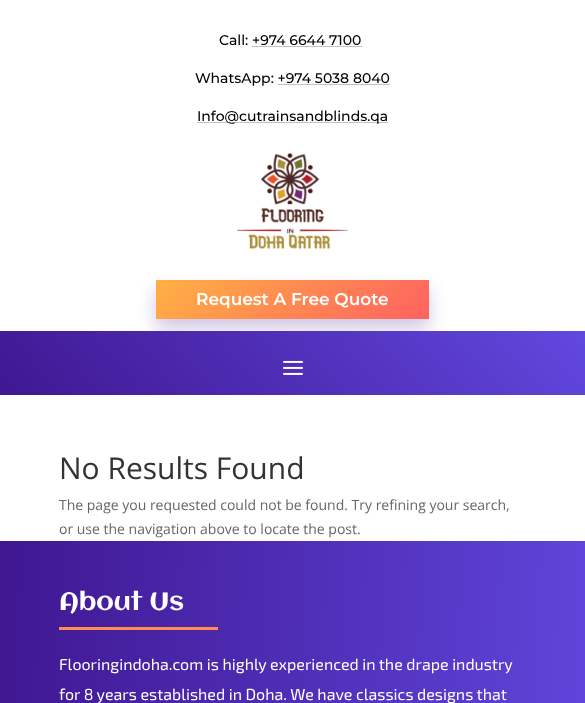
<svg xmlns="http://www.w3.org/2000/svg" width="585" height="703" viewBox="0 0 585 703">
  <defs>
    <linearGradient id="g1" gradientUnits="userSpaceOnUse" x1="215" y1="222" x2="371" y2="378"><stop offset="0" stop-color="rgb(255,176,67)"/><stop offset="1" stop-color="rgb(255,97,97)"/></linearGradient>
    <linearGradient id="g2" gradientUnits="userSpaceOnUse" x1="115" y1="523" x2="470" y2="203"><stop offset="0" stop-color="rgb(63,23,145)"/><stop offset="1" stop-color="rgb(97,72,223)"/></linearGradient>
    <linearGradient id="g3" gradientUnits="userSpaceOnUse" x1="-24" y1="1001" x2="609" y2="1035"><stop offset="0" stop-color="rgb(63,23,145)"/><stop offset="1" stop-color="rgb(97,72,223)"/></linearGradient>
  </defs>
  <rect width="100%" height="100%" fill="rgb(255,255,255)"/>
  <text x="219" y="45" font-family="Montserrat" font-size="14" font-weight="100" fill="rgb(0,0,0)">Call: +974 6644 7100</text>
  <rect x="252" y="46" width="110" height="1" fill="rgb(194,194,194)"/>
  <text x="195" y="83" font-family="Montserrat" font-size="14" font-weight="100" fill="rgb(0,0,0)">WhatsApp: +974 5038 8040</text>
  <rect x="278" y="84" width="112" height="1" fill="rgb(194,194,194)"/>
  <rect x="197" y="122" width="191" height="1" fill="rgb(194,194,194)"/>
  <text x="197" y="121" font-family="Montserrat" font-size="14" font-weight="100" fill="rgb(0,0,0)">Info@cutrainsandblinds.qa</text>
  <image x="237" y="153" width="111" height="97" href="pic1.png"/>
  <rect x="156" y="290" width="273" height="39" fill="rgba(63,23,145,0.24)" filter="blur(9px)"/>
  <rect x="156" y="280" width="273" height="39" fill="url(#g1)"/>
  <text x="196" y="305" font-family="'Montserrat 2'" font-size="17" font-weight="100" fill="rgb(255,255,255)">Request A Free Quote</text>
  <rect x="0" y="331" width="585" height="64" fill="url(#g2)"/>
  <image x="283" y="360" width="20" height="15" href="pic2.png"/>
  <text x="59" y="479" font-family="Open Sans" font-size="30" fill="rgb(51,51,51)">No Results Found</text>
  <g font-family="Open Sans" font-size="14" fill="rgb(102,102,102)">
    <text>
      <tspan x="59" y="510">The page you requested could not be found. Try refining your search,</tspan>
      <tspan x="59" y="534">or use the navigation above to locate the post.</tspan>
    </text>
  </g>
  <rect x="0" y="541" width="585" height="162" fill="url(#g3)"/>
  <text x="59" y="610" font-family="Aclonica" font-size="25" fill="rgb(255,255,255)">About Us</text>
  <rect x="59" y="627" width="159" height="3" fill="rgb(255,140,81)"/>
  <g font-family="'Exo 2'" font-size="16" fill="rgb(255,255,255)">
    <text>
      <tspan x="59" y="670">Flooringindoha.com is highly experienced in the drape industry</tspan>
      <tspan x="59" y="700">for 8 years established in Doha. We have classics designs that</tspan>
    </text>
  </g>
</svg>
